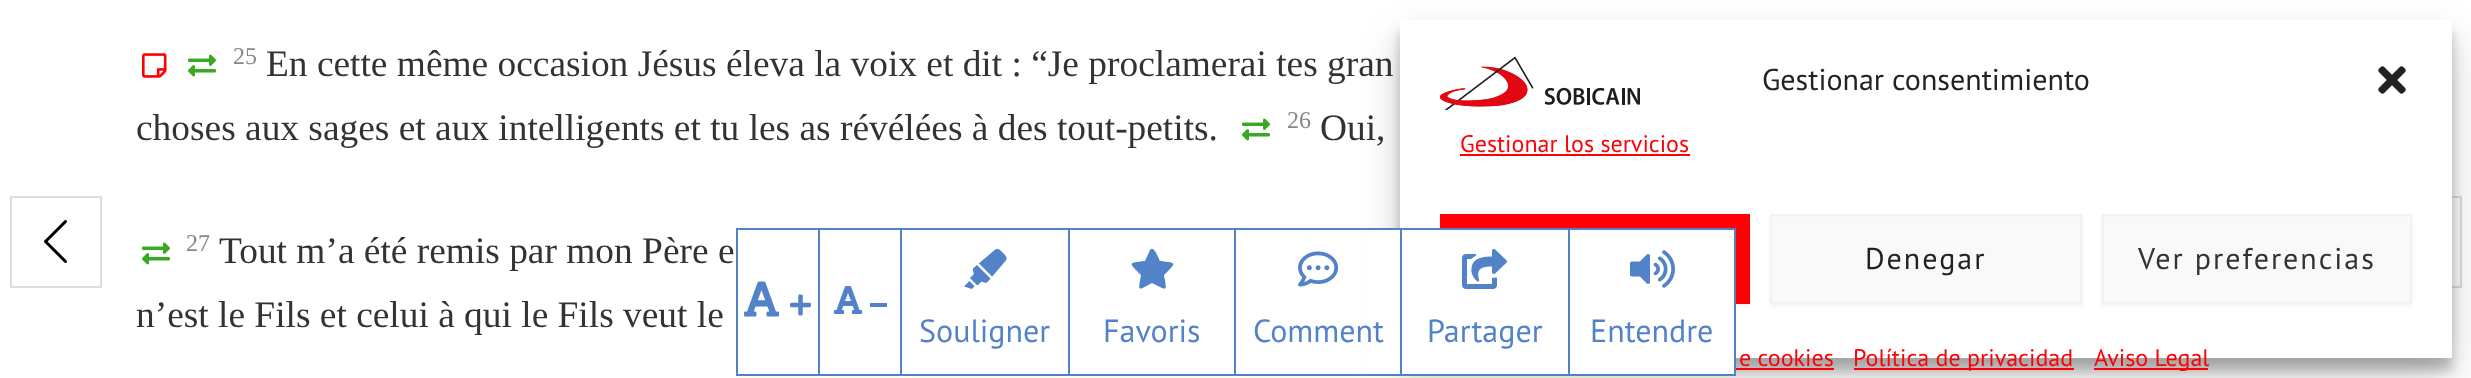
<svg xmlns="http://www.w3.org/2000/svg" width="2471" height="378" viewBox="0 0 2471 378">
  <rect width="100%" height="100%" fill="rgb(255,255,255)"/>
  <image x="142" y="53" width="25" height="25" href="pic1.png"/>
  <image x="188" y="54" width="28" height="23" href="pic2.png"/>
  <text x="233" y="64" font-family="Liberation Serif" font-size="24" fill="rgb(136,136,136)">25</text>
  <g font-family="Liberation Serif" font-size="37.4" fill="rgb(51,51,51)">
    <text x="266" y="76">En cette même occasion Jésus éleva la voix et dit : “Je proclamerai tes gran</text>
    <text x="136" y="140">choses aux sages et aux intelligents et tu les as révélées à des tout-petits.</text>
  </g>
  <image x="1242" y="118" width="28" height="23" href="pic2.png"/>
  <text x="1287" y="128" font-family="Liberation Serif" font-size="24" fill="rgb(136,136,136)">26</text>
  <text x="1320" y="140" font-family="Liberation Serif" font-size="37.4" fill="rgb(51,51,51)">Oui,</text>
  <image x="142" y="242" width="28" height="23" href="pic2.png"/>
  <text x="186" y="251" font-family="Liberation Serif" font-size="24" fill="rgb(136,136,136)">27</text>
  <g font-family="Liberation Serif" font-size="37.4" fill="rgb(51,51,51)">
    <text x="219" y="263">Tout m’a été remis par mon Père e</text>
    <text x="136" y="327">n’est le Fils et celui à qui le Fils veut le</text>
  </g>
  <rect x="11" y="197" width="90" height="90" fill="none" stroke="rgb(221,220,218)" stroke-width="2"/>
  <image x="44" y="220" width="23" height="43" href="pic3.png"/>
  <rect x="2371" y="197" width="90" height="90" fill="none" stroke="rgb(221,220,218)" stroke-width="2"/>
  <rect x="737" y="229" width="82" height="146" fill="none" stroke="rgb(82,130,200)" stroke-width="2"/>
  <image x="744" y="281" width="35" height="36" href="pic4.png"/>
  <image x="790" y="294" width="21" height="22" href="pic5.png"/>
  <rect x="1400" y="32" width="1052" height="338" fill="rgba(0,0,0,0.23)" filter="blur(6px)"/>
  <rect x="1400" y="40" width="1052" height="338" fill="rgba(0,0,0,0.19)" filter="blur(20px)"/>
  <rect x="1400" y="20" width="1052" height="338" fill="rgb(255,255,255)"/>
  <rect x="1440" y="216" width="310" height="90" fill="rgba(0,0,0,0.05)" filter="blur(2px)"/>
  <rect x="1440" y="214" width="310" height="90" fill="rgb(255,0,4)"/>
  <rect x="820" y="228" width="916" height="2" fill="rgb(82,130,200)"/>
  <rect x="900" y="228" width="2" height="148" fill="rgb(82,130,200)"/>
  <rect x="820" y="374" width="82" height="2" fill="rgb(82,130,200)"/>
  <image x="834" y="286" width="28" height="28" href="pic6.png"/>
  <rect x="870" y="303" width="17" height="4" fill="rgb(82,130,200)"/>
  <rect x="1068" y="228" width="2" height="148" fill="rgb(82,130,200)"/>
  <rect x="902" y="374" width="168" height="2" fill="rgb(82,130,200)"/>
  <image x="964" y="249" width="43" height="40" href="pic7.png"/>
  <text x="919" y="342" font-family="PT Sans" font-size="32" fill="rgb(82,130,200)">Souligner</text>
  <rect x="1234" y="228" width="2" height="148" fill="rgb(82,130,200)"/>
  <rect x="1070" y="374" width="166" height="2" fill="rgb(82,130,200)"/>
  <path d="M1150 250C1154 244 1159 260 1160 261C1177 263 1177 262 1164 275C1167 292 1168 291 1152 283C1137 291 1138 292 1141 275C1128 262 1128 263 1145 261Z" fill="rgb(82,130,200)"/>
  <text x="1103" y="342" font-family="PT Sans" font-size="32" fill="rgb(82,130,200)">Favoris</text>
  <rect x="1368" y="230" width="32" height="144" fill="rgb(255,255,255)"/>
  <rect x="1400" y="228" width="2" height="148" fill="rgb(82,130,200)"/>
  <rect x="1236" y="374" width="166" height="2" fill="rgb(82,130,200)"/>
  <image x="1298" y="251" width="41" height="36" href="pic8.png"/>
  <text x="1253" y="342" font-family="PT Sans" font-size="32" fill="rgb(82,130,200)">Comment</text>
  <rect x="1402" y="230" width="166" height="144" fill="rgb(255,255,255)"/>
  <rect x="1568" y="228" width="2" height="148" fill="rgb(82,130,200)"/>
  <rect x="1402" y="374" width="168" height="2" fill="rgb(82,130,200)"/>
  <image x="1462" y="249" width="45" height="40" href="pic9.png"/>
  <text x="1427" y="342" font-family="PT Sans" font-size="32" fill="rgb(82,130,200)">Partager</text>
  <rect x="1570" y="230" width="164" height="144" fill="rgb(255,255,255)"/>
  <rect x="1734" y="228" width="2" height="148" fill="rgb(82,130,200)"/>
  <rect x="1570" y="374" width="166" height="2" fill="rgb(82,130,200)"/>
  <image x="1630" y="250" width="45" height="38" href="pic10.png"/>
  <text x="1590" y="342" font-family="PT Sans" font-size="32" fill="rgb(82,130,200)">Entendre</text>
  <image x="1440" y="56" width="200" height="54" href="pic11.png"/>
  <text x="1762" y="90" font-family="PT Sans" font-size="30" fill="rgb(34,34,34)">Gestionar consentimiento</text>
  <image x="2378" y="66" width="28" height="28" href="pic12.png"/>
  <text x="1460" y="152" font-family="PT Sans" font-size="24" fill="rgb(255,0,4)">Gestionar los servicios</text>
  <rect x="1460" y="154" width="230" height="2" fill="rgb(255,0,4)"/>
  <rect x="1770" y="216" width="312" height="90" fill="rgba(0,0,0,0.05)" filter="blur(2px)"/>
  <rect x="1772" y="217" width="308" height="85" fill="rgb(249,249,249)"/>
  <rect x="1771" y="215" width="310" height="88" fill="none" stroke="rgb(242,242,242)" stroke-width="2"/>
  <text x="1865" y="269" font-family="PT Sans" font-size="30" letter-spacing="2" fill="rgb(34,34,34)">Denegar</text>
  <rect x="2102" y="216" width="310" height="90" fill="rgba(0,0,0,0.05)" filter="blur(2px)"/>
  <rect x="2104" y="217" width="306" height="85" fill="rgb(249,249,249)"/>
  <rect x="2103" y="215" width="308" height="88" fill="none" stroke="rgb(242,242,242)" stroke-width="2"/>
  <text x="2138" y="269" font-family="PT Sans" font-size="30" letter-spacing="2" fill="rgb(51,51,51)">Ver preferencias</text>
  <text x="1739" y="366" font-family="PT Sans" font-size="24" fill="rgb(255,0,4)">e cookies</text>
  <rect x="1736" y="368" width="98" height="2" fill="rgb(255,0,4)"/>
  <rect x="1854" y="368" width="220" height="2" fill="rgb(255,0,4)"/>
  <text x="1853" y="366" font-family="PT Sans" font-size="24" fill="rgb(255,0,4)">Política de privacidad</text>
  <rect x="2094" y="368" width="114" height="2" fill="rgb(255,0,4)"/>
  <text x="2094" y="366" font-family="PT Sans" font-size="24" fill="rgb(255,0,4)">Aviso Legal</text>
</svg>
